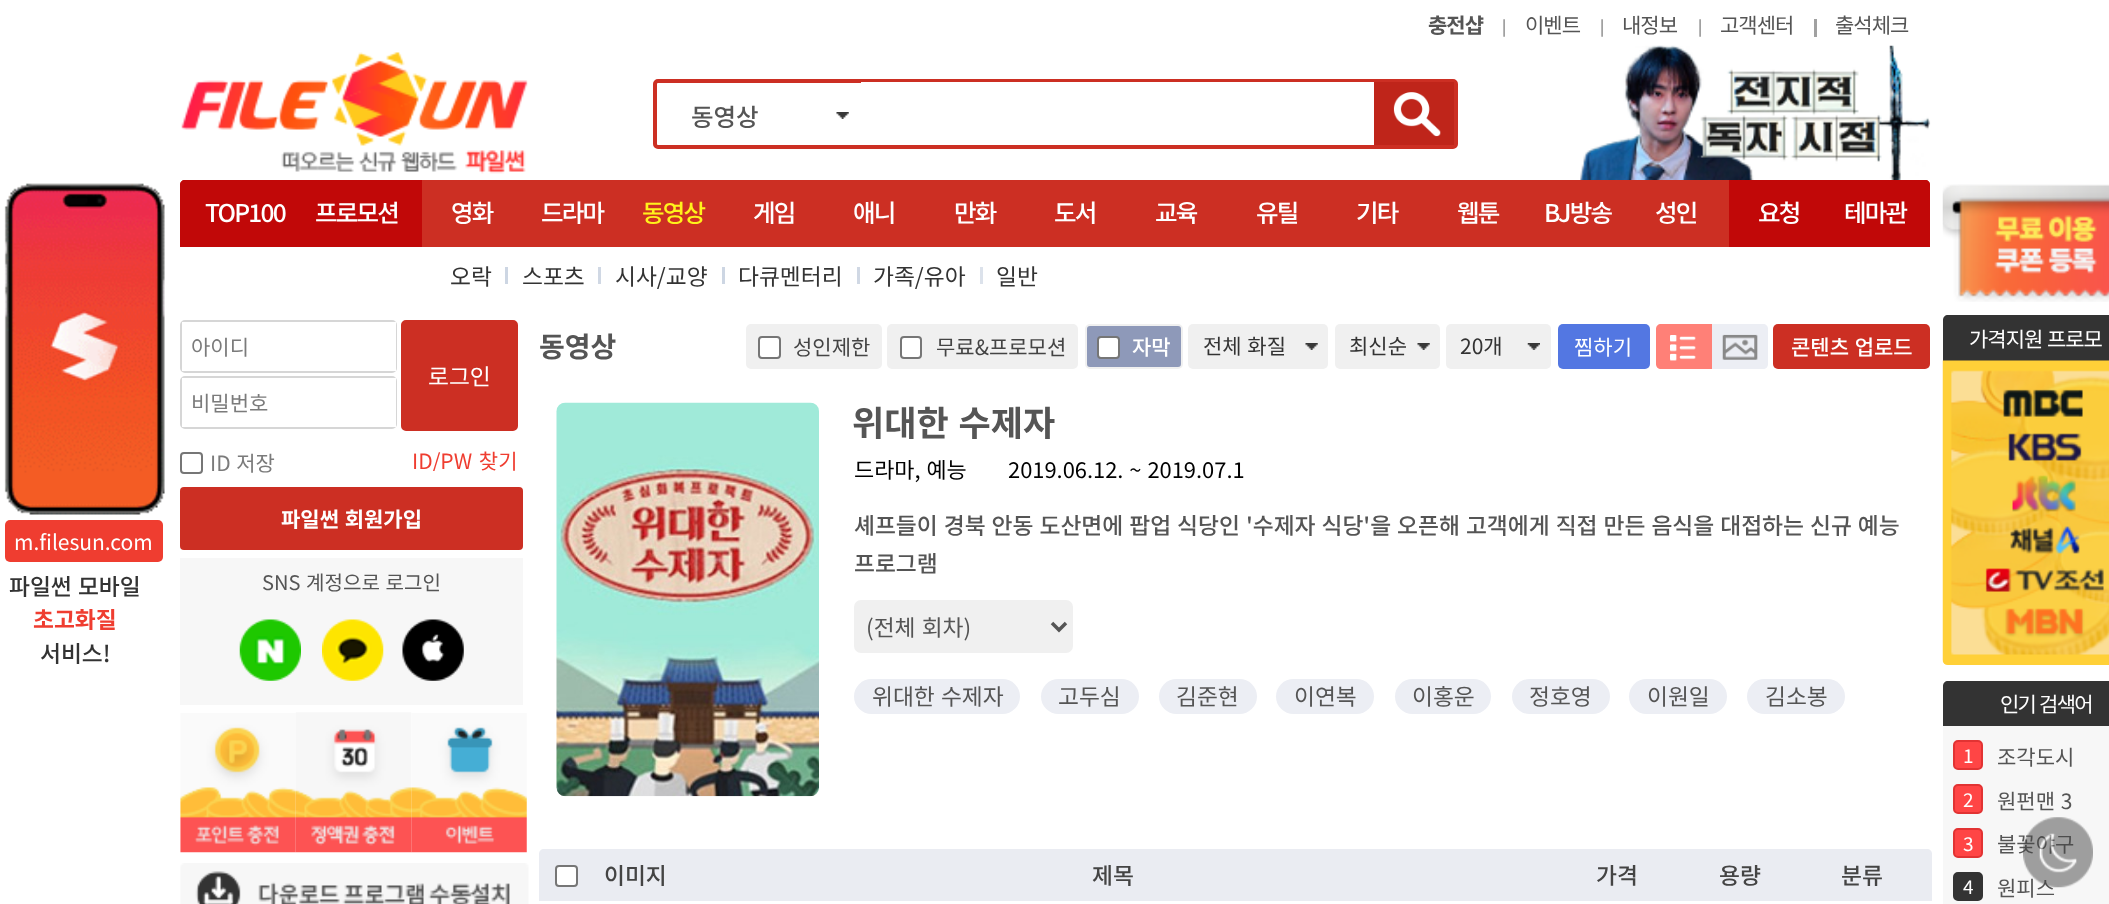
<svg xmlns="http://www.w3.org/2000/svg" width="2109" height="904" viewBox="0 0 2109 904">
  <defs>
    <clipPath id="clip1"><rect x="359" y="446" width="157" height="25"/></clipPath>
  </defs>
  <rect width="100%" height="100%" fill="rgb(255,255,255)"/>
  <text x="1428" y="33" font-family="Noto Sans KR" font-size="21" font-weight="bold" letter-spacing="-1" fill="rgb(85,85,85)">충전샵</text>
  <image x="1503" y="19" width="2" height="18" href="pic1.png"/>
  <text x="1525" y="33" font-family="Noto Sans KR" font-size="21" letter-spacing="-1" fill="rgb(85,85,85)">이벤트</text>
  <image x="1601" y="19" width="2" height="18" href="pic1.png"/>
  <text x="1622" y="33" font-family="Noto Sans KR" font-size="21" letter-spacing="-1" fill="rgb(85,85,85)">내정보</text>
  <image x="1699" y="19" width="2" height="18" href="pic1.png"/>
  <text x="1720" y="33" font-family="Noto Sans KR" font-size="21" letter-spacing="-1" fill="rgb(85,85,85)">고객센터</text>
  <rect x="1814" y="19" width="3" height="18" fill="rgb(161,161,161)"/>
  <text x="1835" y="33" font-family="Noto Sans KR" font-size="21" letter-spacing="-1" fill="rgb(85,85,85)">출석체크</text>
  <image x="181" y="52" width="347" height="122" href="pic2.png"/>
  <rect x="655" y="81" width="801" height="66" rx="3" fill="none" stroke="rgb(204,47,35)" stroke-width="4"/>
  <image x="836" y="112" width="13" height="7" href="pic3.png"/>
  <text x="691" y="126" font-family="Noto Sans KR" font-size="24.5" font-weight="500" fill="rgb(85,85,85)">동영상</text>
  <rect x="861" y="82" width="513" height="1" fill="rgb(255,255,255)"/>
  <rect x="1374" y="82" width="80" height="63" fill="rgb(191,37,26)"/>
  <image x="1393" y="92" width="48" height="45" href="pic4.png"/>
  <image x="1580" y="45" width="351" height="140" href="pic5.png"/>
  <path d="M185 180H1925C1928 180 1930 182 1930 185V247H180V185C180 182 182 180 185 180Z" fill="rgb(204,47,35)"/>
  <path d="M185 180H301V247H180V185C180 182 182 180 185 180Z" fill="rgb(193,8,8)"/>
  <text x="205" y="222" font-family="Noto Sans KR" font-size="24.5" font-weight="500" letter-spacing="-1.75" fill="rgb(255,255,255)">TOP100</text>
  <rect x="301" y="180" width="121" height="67" fill="rgb(193,8,8)"/>
  <g font-family="Noto Sans KR" font-size="24.5" font-weight="500" letter-spacing="-1.75" fill="rgb(255,255,255)">
    <text x="315" y="222">프로모션</text>
    <text x="451" y="222">영화</text>
    <text x="541" y="222">드라마</text>
  </g>
  <text x="642" y="222" font-family="Noto Sans KR" font-size="24.5" font-weight="500" letter-spacing="-1.75" fill="rgb(255,242,28)">동영상</text>
  <g font-family="Noto Sans KR" font-size="24.5" font-weight="500" letter-spacing="-1.75" fill="rgb(255,255,255)">
    <text x="753" y="222">게임</text>
    <text x="853" y="222">애니</text>
    <text x="954" y="222">만화</text>
    <text x="1054" y="222">도서</text>
    <text x="1155" y="222">교육</text>
    <text x="1256" y="222">유틸</text>
    <text x="1356" y="222">기타</text>
    <text x="1457" y="222">웹툰</text>
    <text x="1544" y="222">BJ방송</text>
    <text x="1655" y="222">성인</text>
  </g>
  <rect x="1729" y="180" width="100" height="67" fill="rgb(193,8,8)"/>
  <text x="1758" y="222" font-family="Noto Sans KR" font-size="24.5" font-weight="500" letter-spacing="-1.75" fill="rgb(255,255,255)">요청</text>
  <path d="M1829 180H1925C1928 180 1930 182 1930 185V247H1829Z" fill="rgb(193,8,8)"/>
  <text x="1844" y="222" font-family="Noto Sans KR" font-size="24.5" font-weight="500" letter-spacing="-1.75" fill="rgb(255,255,255)">테마관</text>
  <rect x="505" y="267" width="3" height="17" fill="rgb(205,214,227)"/>
  <text x="450" y="285" font-family="Noto Sans KR" font-size="22.75" fill="rgb(51,51,51)">오락</text>
  <rect x="598" y="267" width="3" height="17" fill="rgb(208,216,228)"/>
  <text x="522" y="285" font-family="Noto Sans KR" font-size="22.75" fill="rgb(51,51,51)">스포츠</text>
  <rect x="722" y="267" width="3" height="17" fill="rgb(205,214,227)"/>
  <text x="615" y="285" font-family="Noto Sans KR" font-size="22.75" fill="rgb(51,51,51)">시사/교양</text>
  <rect x="857" y="267" width="3" height="17" fill="rgb(208,216,228)"/>
  <text x="738" y="285" font-family="Noto Sans KR" font-size="22.75" fill="rgb(51,51,51)">다큐멘터리</text>
  <rect x="980" y="267" width="3" height="17" fill="rgb(220,226,235)"/>
  <g font-family="Noto Sans KR" font-size="22.75" fill="rgb(51,51,51)">
    <text x="873" y="285">가족/유아</text>
    <text x="996" y="285">일반</text>
  </g>
  <image x="4" y="183" width="161" height="332" href="pic6.png"/>
  <rect x="5" y="520" width="158" height="42" rx="5" fill="rgb(239,61,48)"/>
  <text x="14" y="550" font-family="Noto Sans KR" font-size="21" fill="rgb(255,255,255)">m.filesun.com</text>
  <text x="9" y="595" word-spacing="1" font-family="Noto Sans KR" font-size="22.75" font-weight="500" fill="rgb(51,51,51)">파일썬 모바일</text>
  <text x="33" y="628" font-family="Noto Sans KR" font-size="22.75" font-weight="bold" fill="rgb(239,61,48)">초고화질</text>
  <text x="40" y="662" font-family="Noto Sans KR" font-size="22.75" font-weight="500" fill="rgb(51,51,51)">서비스!</text>
  <image x="1942" y="184" width="167" height="118" href="pic7.png"/>
  <path d="M1948 315H2109C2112 315 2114 317 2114 320V361H1943V320C1943 317 1945 315 1948 315Z" fill="rgb(51,51,51)"/>
  <text x="1969" y="347" word-spacing="1" font-family="Noto Sans KR" font-size="21" letter-spacing="-1" fill="rgb(255,255,255)">가격지원 프로모</text>
  <image x="1942" y="360" width="167" height="305" href="pic8.png"/>
  <path d="M1948 681H2109C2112 681 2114 683 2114 686V726H1943V686C1943 683 1945 681 1948 681Z" fill="rgb(51,51,51)"/>
  <text x="2000" y="712" word-spacing="1" font-family="Noto Sans KR" font-size="21" letter-spacing="-1.75" fill="rgb(255,255,255)">인기 검색어</text>
  <rect x="1943" y="726" width="166" height="178" fill="rgb(247,247,247)"/>
  <rect x="1954" y="741" width="28" height="28" rx="4" fill="rgb(255,69,69)" stroke="rgb(226,51,51)" stroke-width="2"/>
  <text x="1963" y="763" font-family="Noto Sans KR" font-size="19" fill="rgb(255,255,255)">1</text>
  <text x="1997" y="765" font-family="Noto Sans KR" font-size="21" fill="rgb(85,85,85)">조각도시</text>
  <rect x="1954" y="785" width="28" height="28" rx="4" fill="rgb(255,69,69)" stroke="rgb(226,51,51)" stroke-width="2"/>
  <text x="1963" y="807" font-family="Noto Sans KR" font-size="19" fill="rgb(255,255,255)">2</text>
  <text x="1997" y="809" word-spacing="1" font-family="Noto Sans KR" font-size="21" fill="rgb(85,85,85)">원펀맨 3</text>
  <rect x="1954" y="829" width="28" height="28" rx="4" fill="rgb(255,69,69)" stroke="rgb(226,51,51)" stroke-width="2"/>
  <text x="1963" y="851" font-family="Noto Sans KR" font-size="19" fill="rgb(255,255,255)">3</text>
  <text x="1997" y="852" font-family="Noto Sans KR" font-size="21" fill="rgb(85,85,85)">불꽃야구</text>
  <rect x="1954" y="873" width="28" height="27" rx="4" fill="rgb(51,51,51)" stroke="rgb(51,51,51)" stroke-width="2"/>
  <text x="1963" y="894" font-family="Noto Sans KR" font-size="19" fill="rgb(255,255,255)">4</text>
  <text x="1997" y="896" font-family="Noto Sans KR" font-size="21" fill="rgb(85,85,85)">원피스</text>
  <image x="2023" y="817" width="70" height="71" href="pic9.png"/>
  <rect x="181" y="321" width="215" height="51" rx="4" fill="none" stroke="rgb(214,214,214)" stroke-width="2"/>
  <rect x="182" y="322" width="214" height="49" fill="rgb(255,255,255)"/>
  <text x="191" y="355" font-family="Noto Sans KR" font-size="21" fill="rgb(123,123,123)">아이디</text>
  <rect x="402" y="321" width="115" height="109" rx="4" fill="rgb(204,47,35)" stroke="rgb(204,47,35)" stroke-width="2"/>
  <text x="428" y="385" font-family="Noto Sans KR" font-size="22.75" fill="rgb(255,255,255)">로그인</text>
  <rect x="181" y="377" width="215" height="51" rx="4" fill="none" stroke="rgb(214,214,214)" stroke-width="2"/>
  <rect x="182" y="378" width="214" height="49" fill="rgb(255,255,255)"/>
  <text x="191" y="411" font-family="Noto Sans KR" font-size="21" fill="rgb(123,123,123)">비밀번호</text>
  <rect x="181" y="453" width="21" height="20" rx="3" fill="none" stroke="rgb(118,118,118)" stroke-width="2"/>
  <text x="210" y="471" word-spacing="1" font-family="Noto Sans KR" font-size="21" fill="rgb(123,123,123)">ID 저장</text>
  <g clip-path="url(#clip1)">
    <text x="412" y="469" word-spacing="2" font-family="Noto Sans KR" font-size="21" fill="rgb(239,61,48)">ID/PW 찾기</text>
  </g>
  <rect x="180" y="487" width="343" height="63" rx="4" fill="rgb(204,47,35)"/>
  <text x="281" y="527" word-spacing="1" font-family="Noto Sans KR" font-size="21" font-weight="bold" fill="rgb(255,255,255)">파일썬 회원가입</text>
  <rect x="180" y="558" width="343" height="147" fill="rgb(247,247,247)"/>
  <text x="262" y="590" word-spacing="1" font-family="Noto Sans KR" font-size="20.1" fill="rgb(85,85,85)">SNS 계정으로 로그인</text>
  <image x="239" y="619" width="62" height="62" href="pic10.png"/>
  <image x="322" y="619" width="62" height="62" href="pic11.png"/>
  <image x="402" y="619" width="62" height="62" href="pic12.png"/>
  <image x="180" y="713" width="116" height="140" href="pic13.png"/>
  <image x="295" y="712" width="117" height="141" href="pic14.png"/>
  <image x="411" y="713" width="116" height="140" href="pic15.png"/>
  <image x="180" y="863" width="349" height="41" href="pic16.png"/>
  <text x="539" y="357" font-family="Noto Sans KR" font-size="28" font-weight="bold" fill="rgb(85,85,85)">동영상</text>
  <rect x="747" y="325" width="134" height="43" rx="4" fill="rgb(240,240,240)" stroke="rgb(240,240,240)" stroke-width="2"/>
  <rect x="759" y="337" width="21" height="21" rx="3" fill="rgb(255,255,255)" stroke="rgb(118,118,118)" stroke-width="2"/>
  <text x="793" y="355" font-family="Noto Sans KR" font-size="21" fill="rgb(68,68,68)">성인제한</text>
  <rect x="888" y="325" width="189" height="43" rx="4" fill="rgb(240,240,240)" stroke="rgb(240,240,240)" stroke-width="2"/>
  <rect x="901" y="337" width="20" height="21" rx="3" fill="rgb(255,255,255)" stroke="rgb(118,118,118)" stroke-width="2"/>
  <text x="936" y="355" font-family="Noto Sans KR" font-size="21" fill="rgb(68,68,68)">무료&amp;프로모션</text>
  <rect x="1086" y="325" width="96" height="43" rx="4" fill="rgb(142,153,185)" stroke="rgb(240,240,240)" stroke-width="2"/>
  <rect x="1098" y="337" width="21" height="21" rx="3" fill="rgb(255,255,255)" stroke="rgb(118,118,118)" stroke-width="2"/>
  <text x="1132" y="355" font-family="Noto Sans KR" font-size="21" font-weight="500" fill="rgb(255,255,255)">자막</text>
  <rect x="1188" y="324" width="140" height="45" rx="5" fill="rgb(240,240,240)"/>
  <image x="1305" y="343" width="13" height="7" href="pic17.png"/>
  <text x="1203" y="354" word-spacing="1" font-family="Noto Sans KR" font-size="21" fill="rgb(51,51,51)">전체 화질</text>
  <rect x="1335" y="324" width="105" height="45" rx="5" fill="rgb(240,240,240)"/>
  <image x="1417" y="343" width="13" height="7" href="pic17.png"/>
  <text x="1349" y="354" font-family="Noto Sans KR" font-size="21" fill="rgb(51,51,51)">최신순</text>
  <rect x="1446" y="324" width="105" height="45" rx="5" fill="rgb(240,240,240)"/>
  <image x="1527" y="343" width="13" height="7" href="pic18.png"/>
  <text x="1460" y="354" font-family="Noto Sans KR" font-size="21" fill="rgb(51,51,51)">20개</text>
  <rect x="1558" y="324" width="92" height="45" rx="5" fill="rgb(83,119,226)"/>
  <text x="1574" y="355" font-family="Noto Sans KR" font-size="21" fill="rgb(255,255,255)">찜하기</text>
  <path d="M1661 324H1712V369H1661C1658 369 1656 367 1656 364V329C1656 326 1658 324 1661 324Z" fill="rgb(255,128,119)"/>
  <image x="1670" y="335" width="26" height="26" href="pic19.png"/>
  <path d="M1712 324H1763C1766 324 1768 326 1768 329V364C1768 367 1766 369 1763 369H1712Z" fill="rgb(236,238,244)"/>
  <image x="1722" y="334" width="36" height="26" href="pic20.png"/>
  <rect x="1773" y="324" width="157" height="45" rx="5" fill="rgb(204,47,35)"/>
  <text x="1791" y="355" word-spacing="1" font-family="Noto Sans KR" font-size="21" font-weight="500" fill="rgb(255,255,255)">콘텐츠 업로드</text>
  <image x="556" y="402" width="263" height="395" href="pic21.png"/>
  <text x="852" y="436" word-spacing="2" font-family="Noto Sans KR" font-size="35" font-weight="bold" fill="rgb(85,85,85)">위대한 수제자</text>
  <g font-family="Noto Sans KR" font-size="21.9" fill="rgb(0,0,0)">
    <text x="854" y="478" word-spacing="1">드라마, 예능</text>
    <text x="1008" y="478" word-spacing="1">2019.06.12. ~ 2019.07.1</text>
  </g>
  <g font-family="Noto Sans KR" font-size="22.75" font-weight="500" fill="rgb(85,85,85)">
    <text>
      <tspan x="854" y="534" word-spacing="0.9">셰프들이 경북 안동 도산면에 팝업 식당인 '수제자 식당'을 오픈해 고객에게 직접 만든 음식을 대접하는 신규 예능</tspan>
      <tspan x="854" y="572">프로그램</tspan>
    </text>
  </g>
  <rect x="854" y="600" width="219" height="53" rx="7" fill="rgb(240,240,240)"/>
  <path d="M1052 623L1059 630L1066 623" fill="none" stroke="rgb(85,85,85)" stroke-width="3.5"/>
  <text x="866" y="636" word-spacing="1" font-family="Noto Sans KR" font-size="22.75" fill="rgb(85,85,85)">(전체 회차)</text>
  <rect x="854" y="679" width="166" height="35" rx="17.5" fill="rgb(236,238,244)"/>
  <text x="872" y="705" word-spacing="1" font-family="Noto Sans KR" font-size="22.75" fill="rgb(85,85,85)">위대한 수제자</text>
  <rect x="1041" y="679" width="98" height="35" rx="17.5" fill="rgb(236,238,244)"/>
  <text x="1058" y="705" font-family="Noto Sans KR" font-size="22.75" fill="rgb(85,85,85)">고두심</text>
  <rect x="1159" y="679" width="98" height="35" rx="17.5" fill="rgb(236,238,244)"/>
  <text x="1176" y="705" font-family="Noto Sans KR" font-size="22.75" fill="rgb(85,85,85)">김준현</text>
  <rect x="1276" y="679" width="98" height="35" rx="17.5" fill="rgb(236,238,244)"/>
  <text x="1294" y="705" font-family="Noto Sans KR" font-size="22.75" fill="rgb(85,85,85)">이연복</text>
  <rect x="1395" y="679" width="96" height="35" rx="17.5" fill="rgb(236,238,244)"/>
  <text x="1412" y="705" font-family="Noto Sans KR" font-size="22.75" fill="rgb(85,85,85)">이홍운</text>
  <rect x="1512" y="679" width="98" height="35" rx="17.5" fill="rgb(236,238,244)"/>
  <text x="1529" y="705" font-family="Noto Sans KR" font-size="22.75" fill="rgb(85,85,85)">정호영</text>
  <rect x="1629" y="679" width="98" height="35" rx="17.5" fill="rgb(236,238,244)"/>
  <text x="1647" y="705" font-family="Noto Sans KR" font-size="22.75" fill="rgb(85,85,85)">이원일</text>
  <rect x="1747" y="679" width="98" height="35" rx="17.5" fill="rgb(236,238,244)"/>
  <text x="1765" y="705" font-family="Noto Sans KR" font-size="22.75" fill="rgb(85,85,85)">김소봉</text>
  <path d="M544 849H592V901H539V854C539 851 541 849 544 849Z" fill="rgb(234,236,242)"/>
  <rect x="556" y="866" width="21" height="20" rx="3" fill="rgb(255,255,255)" stroke="rgb(118,118,118)" stroke-width="2"/>
  <rect x="592" y="849" width="1200" height="52" fill="rgb(234,236,242)"/>
  <g font-family="Noto Sans KR" font-size="22.75" font-weight="500" fill="rgb(68,68,68)">
    <text x="604" y="884">이미지</text>
    <text x="1092" y="884">제목</text>
    <text x="1596" y="884">가격</text>
    <text x="1719" y="884">용량</text>
  </g>
  <path d="M1792 849H1927C1930 849 1932 851 1932 854V901H1792Z" fill="rgb(234,236,242)"/>
  <text x="1841" y="884" font-family="Noto Sans KR" font-size="22.75" font-weight="500" fill="rgb(68,68,68)">분류</text>
</svg>
